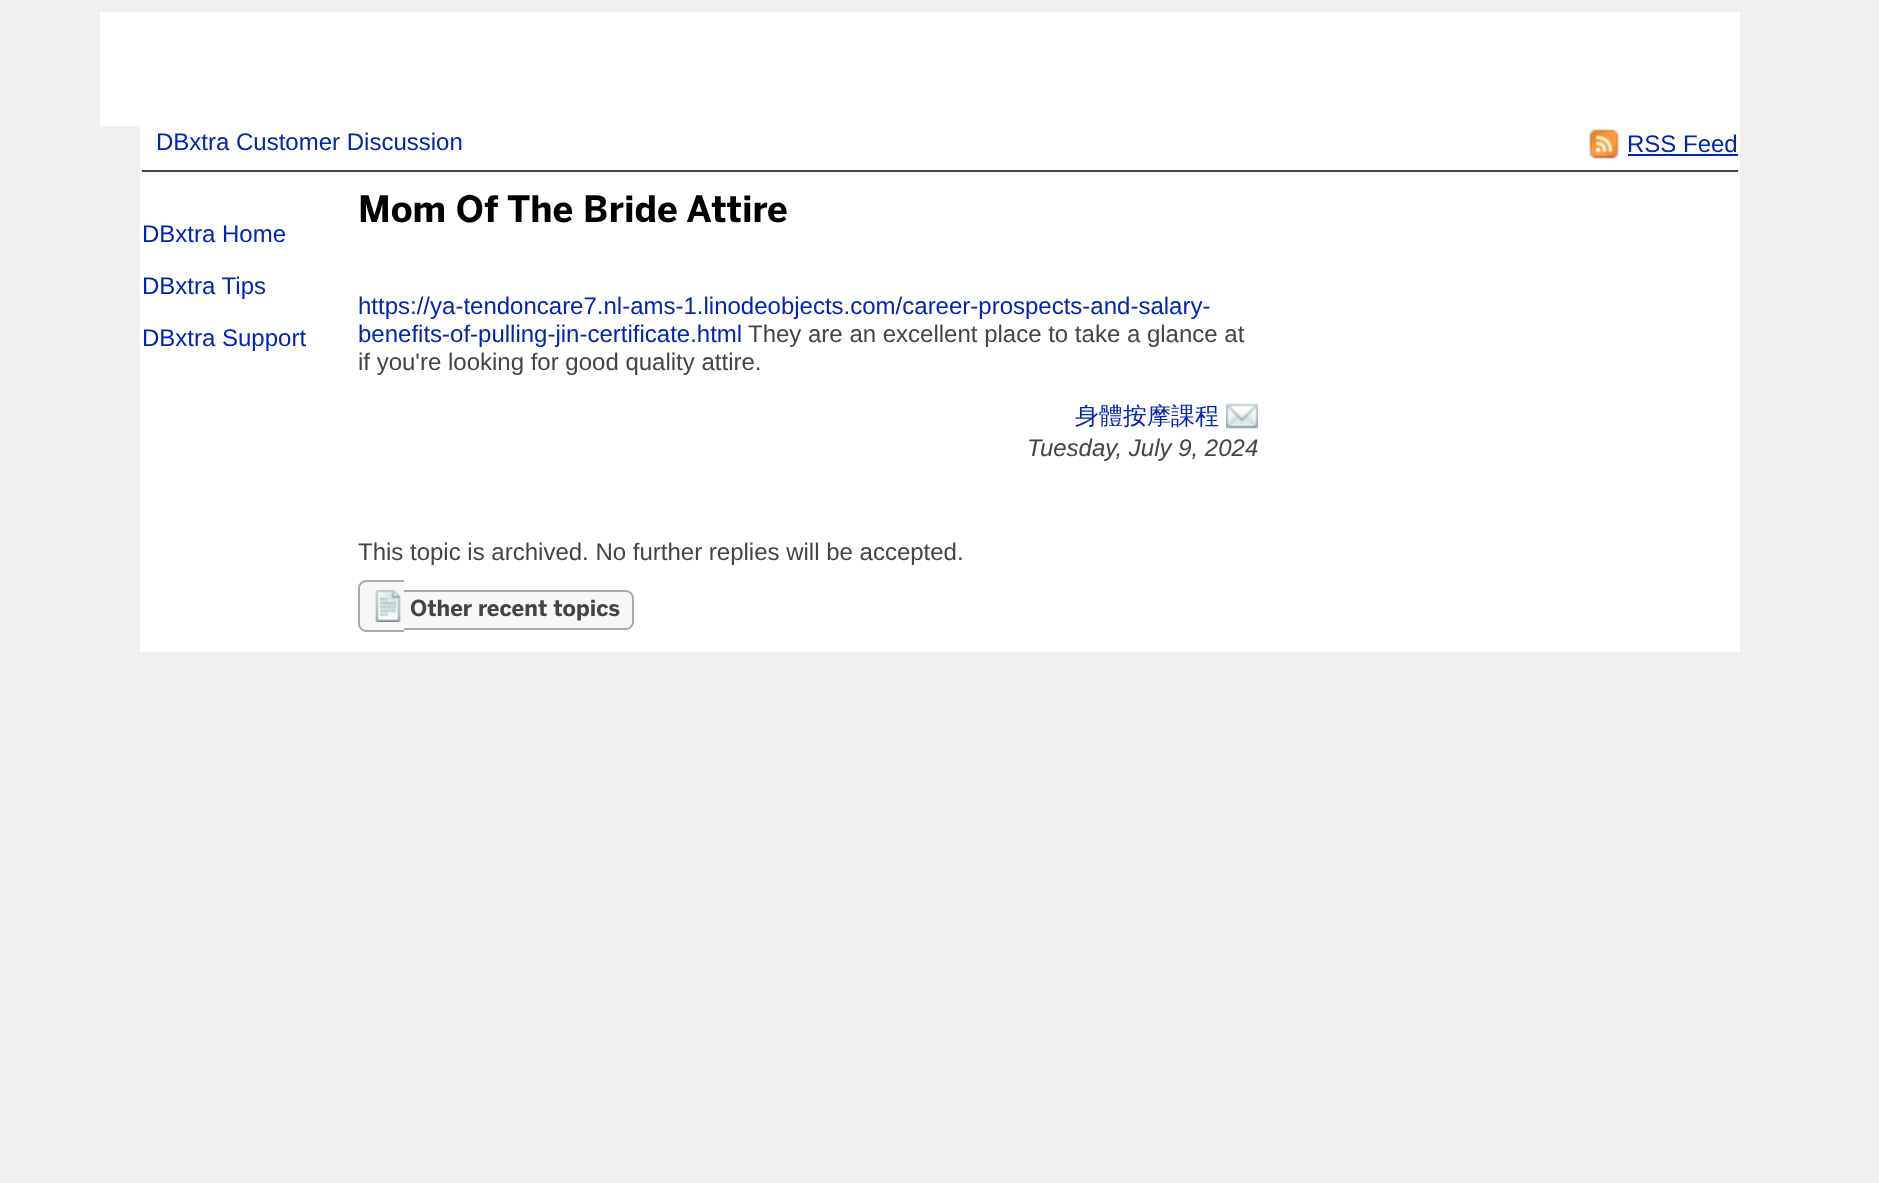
<svg xmlns="http://www.w3.org/2000/svg" width="1879" height="1183" viewBox="0 0 1879 1183">
  <rect width="100%" height="100%" fill="rgb(240,240,240)"/>
  <rect x="140" y="126" width="1600" height="526" fill="rgb(255,255,255)"/>
  <rect x="100" y="12" width="1640" height="114" fill="rgb(255,255,255)"/>
  <text x="156" y="150" font-family="Liberation Sans" font-size="24" fill="rgb(0,36,179)">DBxtra Customer Discussion</text>
  <image x="1589" y="129" width="30" height="30" href="pic1.png"/>
  <text x="1627" y="152" font-family="Liberation Sans" font-size="24" fill="rgb(0,36,179)">RSS Feed</text>
  <rect x="1628" y="154" width="110" height="2" fill="rgb(0,36,179)"/>
  <rect x="142" y="170" width="1596" height="2" fill="rgb(68,68,68)"/>
  <g font-family="Liberation Sans" font-size="24" fill="rgb(0,36,179)">
    <text x="142" y="242">DBxtra Home</text>
    <text x="142" y="294">DBxtra Tips</text>
    <text x="142" y="346">DBxtra Support</text>
  </g>
  <text x="358" y="222" font-family="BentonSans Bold" font-size="36" font-weight="bold" fill="rgb(0,0,0)">Mom Of The Bride Attire</text>
  <g font-family="Liberation Sans" font-size="24" fill="rgb(0,36,179)">
    <text>
      <tspan x="358" y="314">https://ya-tendoncare7.nl-ams-1.linodeobjects.com/career-prospects-and-salary-</tspan>
      <tspan x="358" y="342">benefits-of-pulling-jin-certificate.html</tspan>
    </text>
  </g>
  <g font-family="Liberation Sans" font-size="24" fill="rgb(68,68,68)">
    <text x="748" y="342">They are an excellent place to take a glance at</text>
    <text x="358" y="370">if you're looking for good quality attire.</text>
  </g>
  <text x="1075" y="424" font-family="WenQuanYi Zen Hei" font-size="24" font-weight="500" fill="rgb(0,36,179)">身體按摩課程</text>
  <image x="1226" y="403" width="32" height="26" href="pic2.png"/>
  <text x="1027" y="456" font-family="Liberation Sans" font-size="24" font-style="italic" fill="rgb(68,68,68)">Tuesday, July 9, 2024</text>
  <text x="358" y="560" font-family="Liberation Sans" font-size="24" fill="rgb(68,68,68)">This topic is archived. No further replies will be accepted.</text>
  <path d="M366 580H404V632H366C361.5 632 358 628.5 358 624V588C358 583.5 361.5 580 366 580Z" fill="rgb(247,247,247)"/>
  <path d="M366 580H404V632H366C362 632 358 628 358 624V588C358 584 362 580 366 580ZM366 582H404V630H366C363 630 360 627 360 624V588C360 585 363 582 366 582Z" fill="rgb(170,170,170)" fill-rule="evenodd"/>
  <image x="375" y="590" width="26" height="32" href="pic3.png"/>
  <path d="M404 590H626C630.5 590 634 593.5 634 598V622C634 626.5 630.5 630 626 630H404Z" fill="rgb(247,247,247)"/>
  <path d="M404 590H626C630 590 634 594 634 598V622C634 626 630 630 626 630H404ZM404 592H626C629 592 632 595 632 598V622C632 625 629 628 626 628H404Z" fill="rgb(170,170,170)" fill-rule="evenodd"/>
  <text x="410" y="616" font-family="BentonSans Bold" font-size="22" font-weight="bold" fill="rgb(68,68,68)">Other recent topics</text>
</svg>
